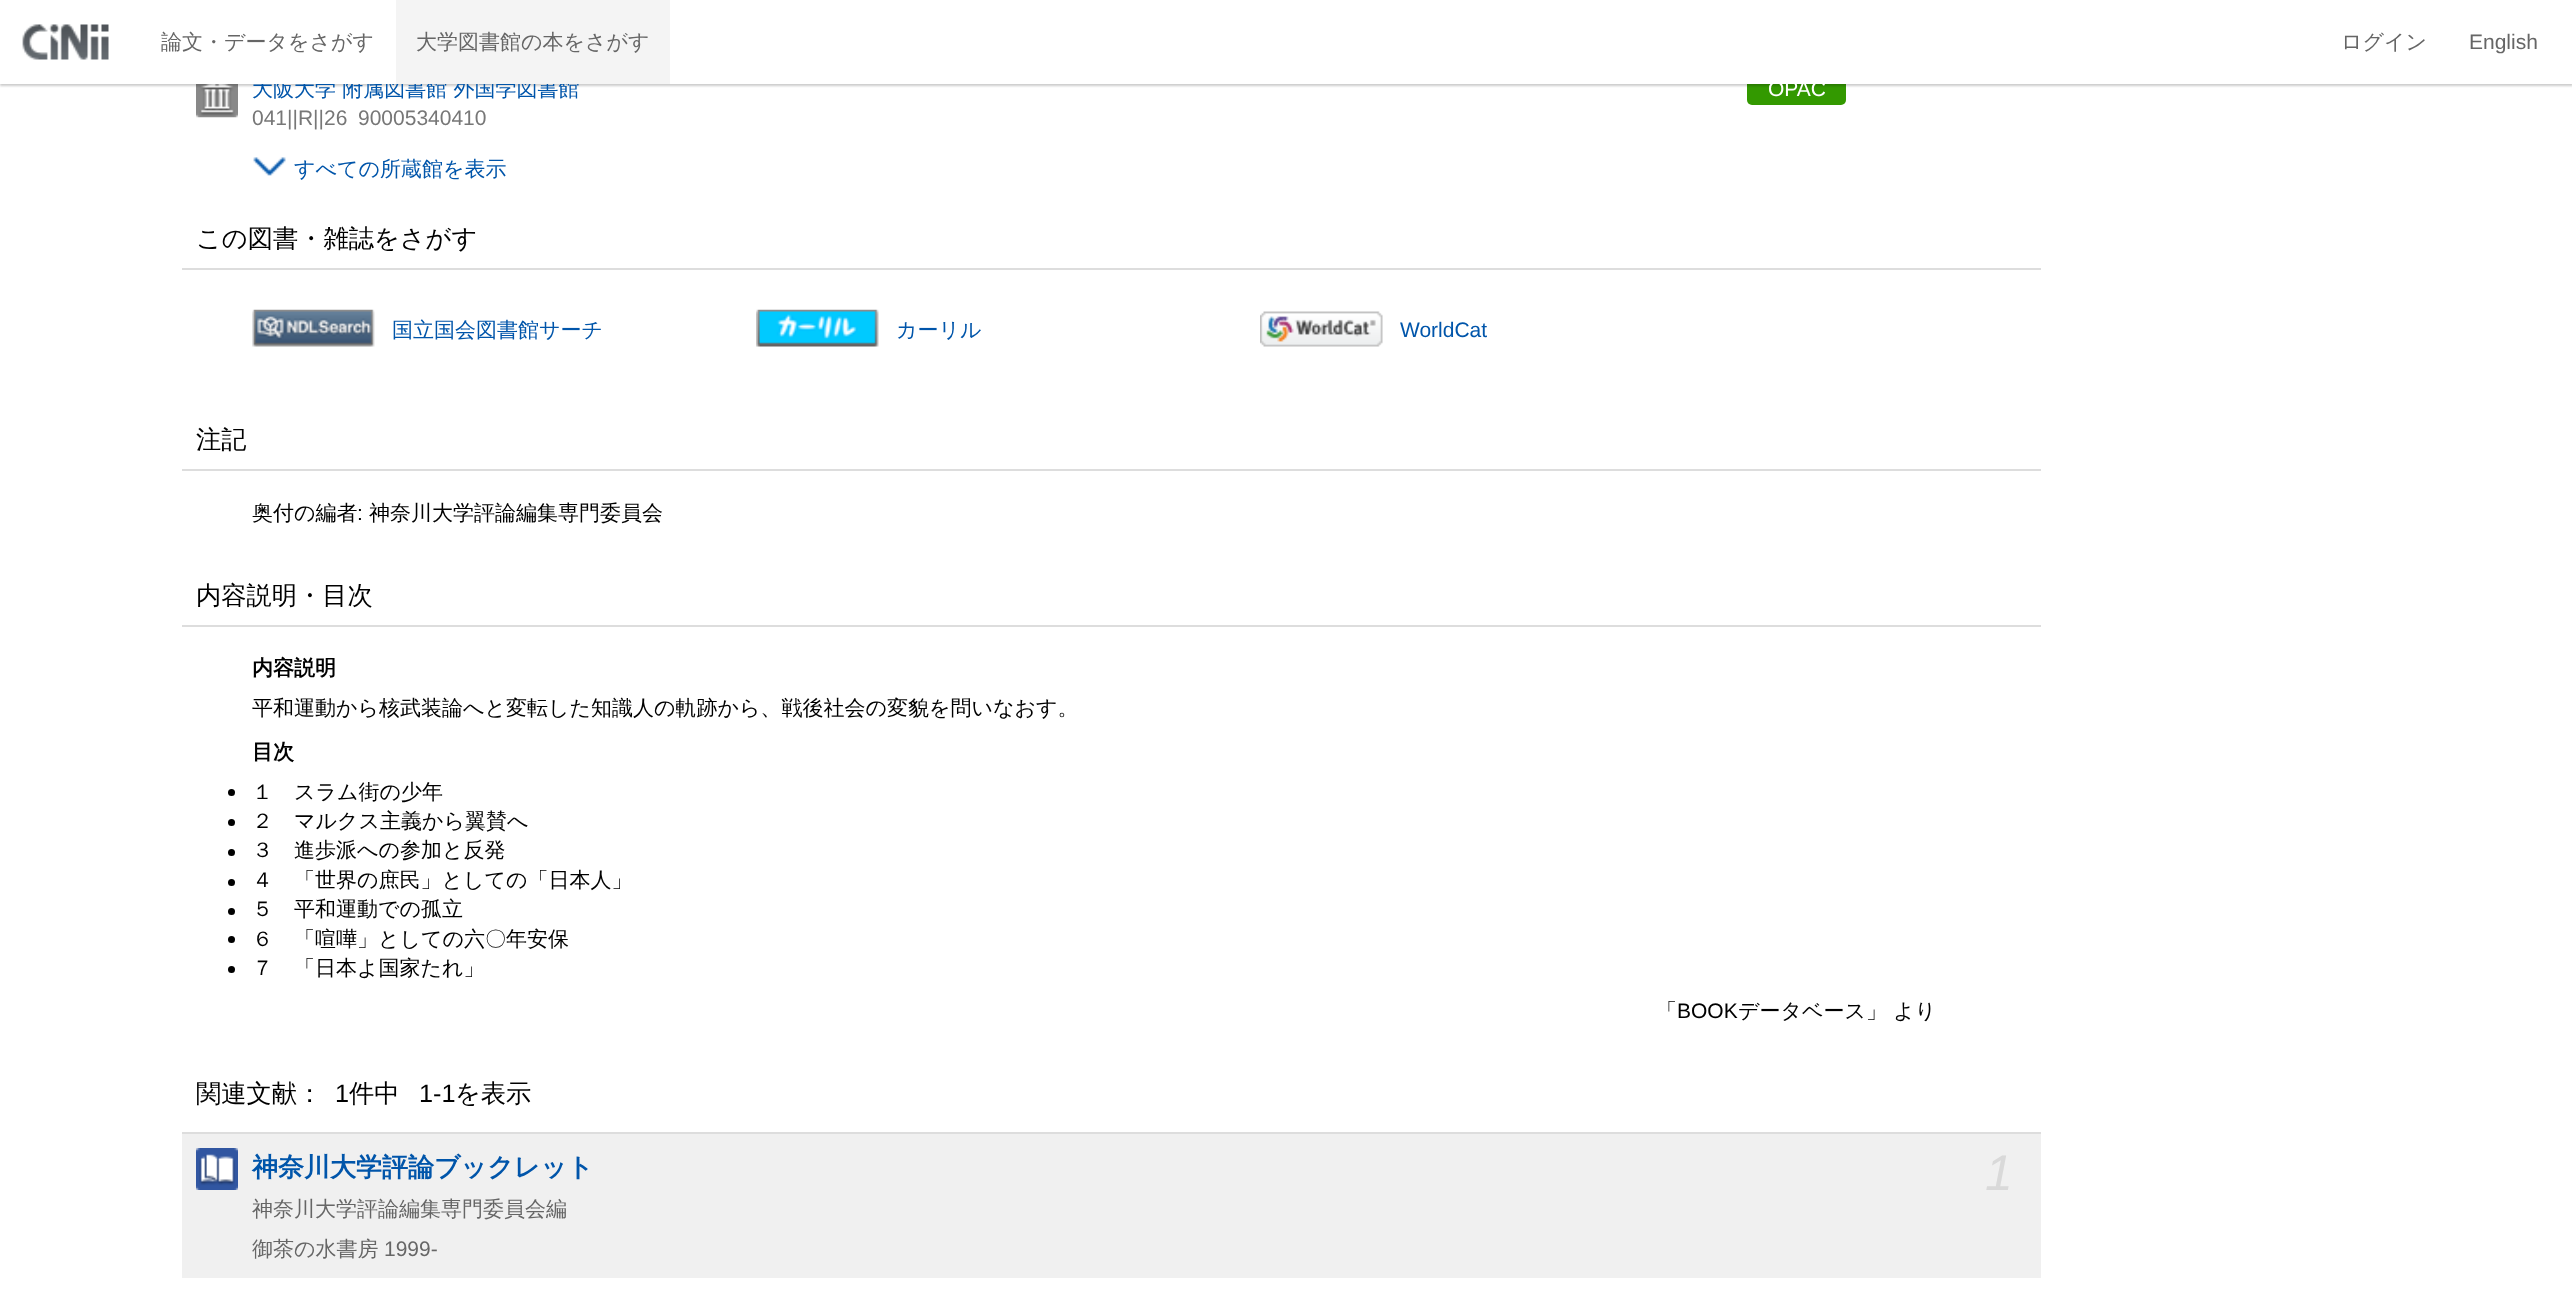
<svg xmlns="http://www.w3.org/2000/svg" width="2572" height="1309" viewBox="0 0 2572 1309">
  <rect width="100%" height="100%" fill="rgb(255,255,255)"/>
  <image x="196" y="84" width="42" height="34" href="pic2.png"/>
  <rect x="1747" y="74" width="99" height="31" rx="5" fill="rgb(51,153,0)"/>
  <rect x="0" y="2" width="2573" height="84" fill="rgba(0,0,0,0.2)" filter="blur(1px)"/>
  <text x="252" y="96" font-family="WenQuanYi Zen Hei" font-size="21" font-weight="500" fill="rgb(0,85,170)">大阪大学 附属図書館 外国学図書館</text>
  <rect x="0" y="0" width="2572" height="84" fill="rgb(255,255,255)"/>
  <image x="22" y="24" width="87" height="36" href="pic1.png"/>
  <text x="161" y="49" font-family="WenQuanYi Zen Hei" font-size="21" font-weight="500" fill="rgb(102,102,102)">論文・データをさがす</text>
  <rect x="396" y="0" width="274" height="84" fill="rgb(244,244,244)"/>
  <g font-family="WenQuanYi Zen Hei" font-size="21" font-weight="500" fill="rgb(102,102,102)">
    <text x="416" y="49">大学図書館の本をさがす</text>
    <text x="2341" y="49">ログイン</text>
  </g>
  <text x="2469" y="49" font-family="Liberation Sans" font-size="21" fill="rgb(102,102,102)">English</text>
  <text x="1768" y="96" font-family="Liberation Sans" font-size="21" fill="rgb(255,255,255)">OPAC</text>
  <g font-family="Liberation Sans" font-size="21" fill="rgb(119,119,119)">
    <text x="252" y="125">041||R||26</text>
    <text x="358" y="125">90005340410</text>
  </g>
  <image x="253" y="157" width="33" height="19" href="pic3.png"/>
  <text x="294" y="176" font-family="WenQuanYi Zen Hei" font-size="21" font-weight="500" fill="rgb(0,85,170)">すべての所蔵館を表示</text>
  <rect x="182" y="268" width="1859" height="2" fill="rgb(221,221,221)"/>
  <text x="196" y="247" font-family="WenQuanYi Zen Hei" font-size="25.25" font-weight="500" fill="rgb(0,0,0)">この図書・雑誌をさがす</text>
  <image x="252" y="309" width="123" height="38" href="pic4.png"/>
  <text x="392" y="337" font-family="WenQuanYi Zen Hei" font-size="21" font-weight="500" fill="rgb(0,85,170)">国立国会図書館サーチ</text>
  <image x="756" y="309" width="123" height="38" href="pic5.png"/>
  <text x="896" y="337" font-family="WenQuanYi Zen Hei" font-size="21" font-weight="500" fill="rgb(0,85,170)">カーリル</text>
  <image x="1260" y="311" width="123" height="36" href="pic6.png"/>
  <text x="1400" y="337" font-family="Liberation Sans" font-size="21" fill="rgb(0,85,170)">WorldCat</text>
  <rect x="182" y="469" width="1859" height="2" fill="rgb(221,221,221)"/>
  <text x="196" y="448" font-family="WenQuanYi Zen Hei" font-size="25.25" font-weight="500" fill="rgb(0,0,0)">注記</text>
  <text x="252" y="520" font-family="WenQuanYi Zen Hei" font-size="21" font-weight="500" fill="rgb(0,0,0)">奥付の編者</text>
  <text x="357" y="520" font-family="Liberation Sans" font-size="21" fill="rgb(0,0,0)">:</text>
  <text x="369" y="520" font-family="WenQuanYi Zen Hei" font-size="21" font-weight="500" fill="rgb(0,0,0)">神奈川大学評論編集専門委員会</text>
  <rect x="182" y="625" width="1859" height="2" fill="rgb(221,221,221)"/>
  <text x="196" y="604" font-family="WenQuanYi Zen Hei" font-size="25.25" font-weight="500" fill="rgb(0,0,0)">内容説明・目次</text>
  <text x="252" y="675" font-family="WenQuanYi Zen Hei" font-size="21" font-weight="bold" fill="rgb(0,0,0)">内容説明</text>
  <text x="252" y="715" font-family="WenQuanYi Zen Hei" font-size="21" font-weight="500" fill="rgb(0,0,0)">平和運動から核武装論へと変転した知識人の軌跡から、戦後社会の変貌を問いなおす。</text>
  <text x="252" y="759" font-family="WenQuanYi Zen Hei" font-size="21" font-weight="bold" fill="rgb(0,0,0)">目次</text>
  <circle cx="231.5" cy="792.5" r="3.5" fill="rgb(0,0,0)"/>
  <text x="252" y="799" font-family="WenQuanYi Zen Hei" font-size="21" font-weight="500" fill="rgb(0,0,0)">１　スラム街の少年</text>
  <circle cx="231.5" cy="822.5" r="3.5" fill="rgb(0,0,0)"/>
  <text x="252" y="828" font-family="WenQuanYi Zen Hei" font-size="21" font-weight="500" fill="rgb(0,0,0)">２　マルクス主義から翼賛へ</text>
  <circle cx="231.5" cy="852.5" r="3.5" fill="rgb(0,0,0)"/>
  <text x="252" y="857" font-family="WenQuanYi Zen Hei" font-size="21" font-weight="500" fill="rgb(0,0,0)">３　進歩派への参加と反発</text>
  <circle cx="231.5" cy="882.5" r="3.5" fill="rgb(0,0,0)"/>
  <text x="252" y="887" font-family="WenQuanYi Zen Hei" font-size="21" font-weight="500" fill="rgb(0,0,0)">４　「世界の庶民」としての「日本人」</text>
  <circle cx="231.5" cy="911.5" r="3.5" fill="rgb(0,0,0)"/>
  <text x="252" y="916" font-family="WenQuanYi Zen Hei" font-size="21" font-weight="500" fill="rgb(0,0,0)">５　平和運動での孤立</text>
  <circle cx="231.5" cy="939.5" r="3.5" fill="rgb(0,0,0)"/>
  <text x="252" y="946" font-family="WenQuanYi Zen Hei" font-size="21" font-weight="500" fill="rgb(0,0,0)">６　「喧嘩」としての六〇年安保</text>
  <circle cx="231.5" cy="969.5" r="3.5" fill="rgb(0,0,0)"/>
  <g font-family="WenQuanYi Zen Hei" font-size="21" font-weight="500" fill="rgb(0,0,0)">
    <text x="252" y="975">７　「日本よ国家たれ」</text>
    <text x="1656" y="1018">「</text>
  </g>
  <text x="1677" y="1018" font-family="Liberation Sans" font-size="21" fill="rgb(0,0,0)">BOOK</text>
  <text x="1738" y="1018" font-family="WenQuanYi Zen Hei" font-size="21" font-weight="500" fill="rgb(0,0,0)">データベース」 より</text>
  <rect x="182" y="1132" width="1859" height="2" fill="rgb(221,221,221)"/>
  <text x="196" y="1102" font-family="WenQuanYi Zen Hei" font-size="25.25" font-weight="500" fill="rgb(0,0,0)">関連文献：</text>
  <text x="335" y="1102" font-family="Liberation Sans" font-size="25.25" fill="rgb(0,0,0)">1</text>
  <text x="349" y="1102" font-family="WenQuanYi Zen Hei" font-size="25.25" font-weight="500" fill="rgb(0,0,0)">件中</text>
  <text x="419" y="1102" font-family="Liberation Sans" font-size="25.25" fill="rgb(0,0,0)">1-1</text>
  <text x="455" y="1102" font-family="WenQuanYi Zen Hei" font-size="25.25" font-weight="500" fill="rgb(0,0,0)">を表示</text>
  <rect x="182" y="1134" width="1859" height="144" fill="rgb(240,240,240)"/>
  <image x="196" y="1148" width="42" height="42" href="pic7.png"/>
  <text x="252" y="1176" font-family="WenQuanYi Zen Hei" font-size="26" font-weight="bold" fill="rgb(0,85,170)">神奈川大学評論ブックレット</text>
  <g font-family="WenQuanYi Zen Hei" font-size="21" font-weight="500" fill="rgb(102,102,102)">
    <text>
      <tspan x="252" y="1216">神奈川大学評論編集専門委員会編</tspan>
      <tspan x="252" y="1256">御茶の水書房</tspan>
    </text>
  </g>
  <text x="384" y="1256" font-family="Liberation Sans" font-size="21" fill="rgb(102,102,102)">1999-</text>
  <text x="1985" y="1190" font-family="Liberation Sans" font-size="50" font-style="italic" fill="rgb(217,217,217)">1</text>
</svg>
